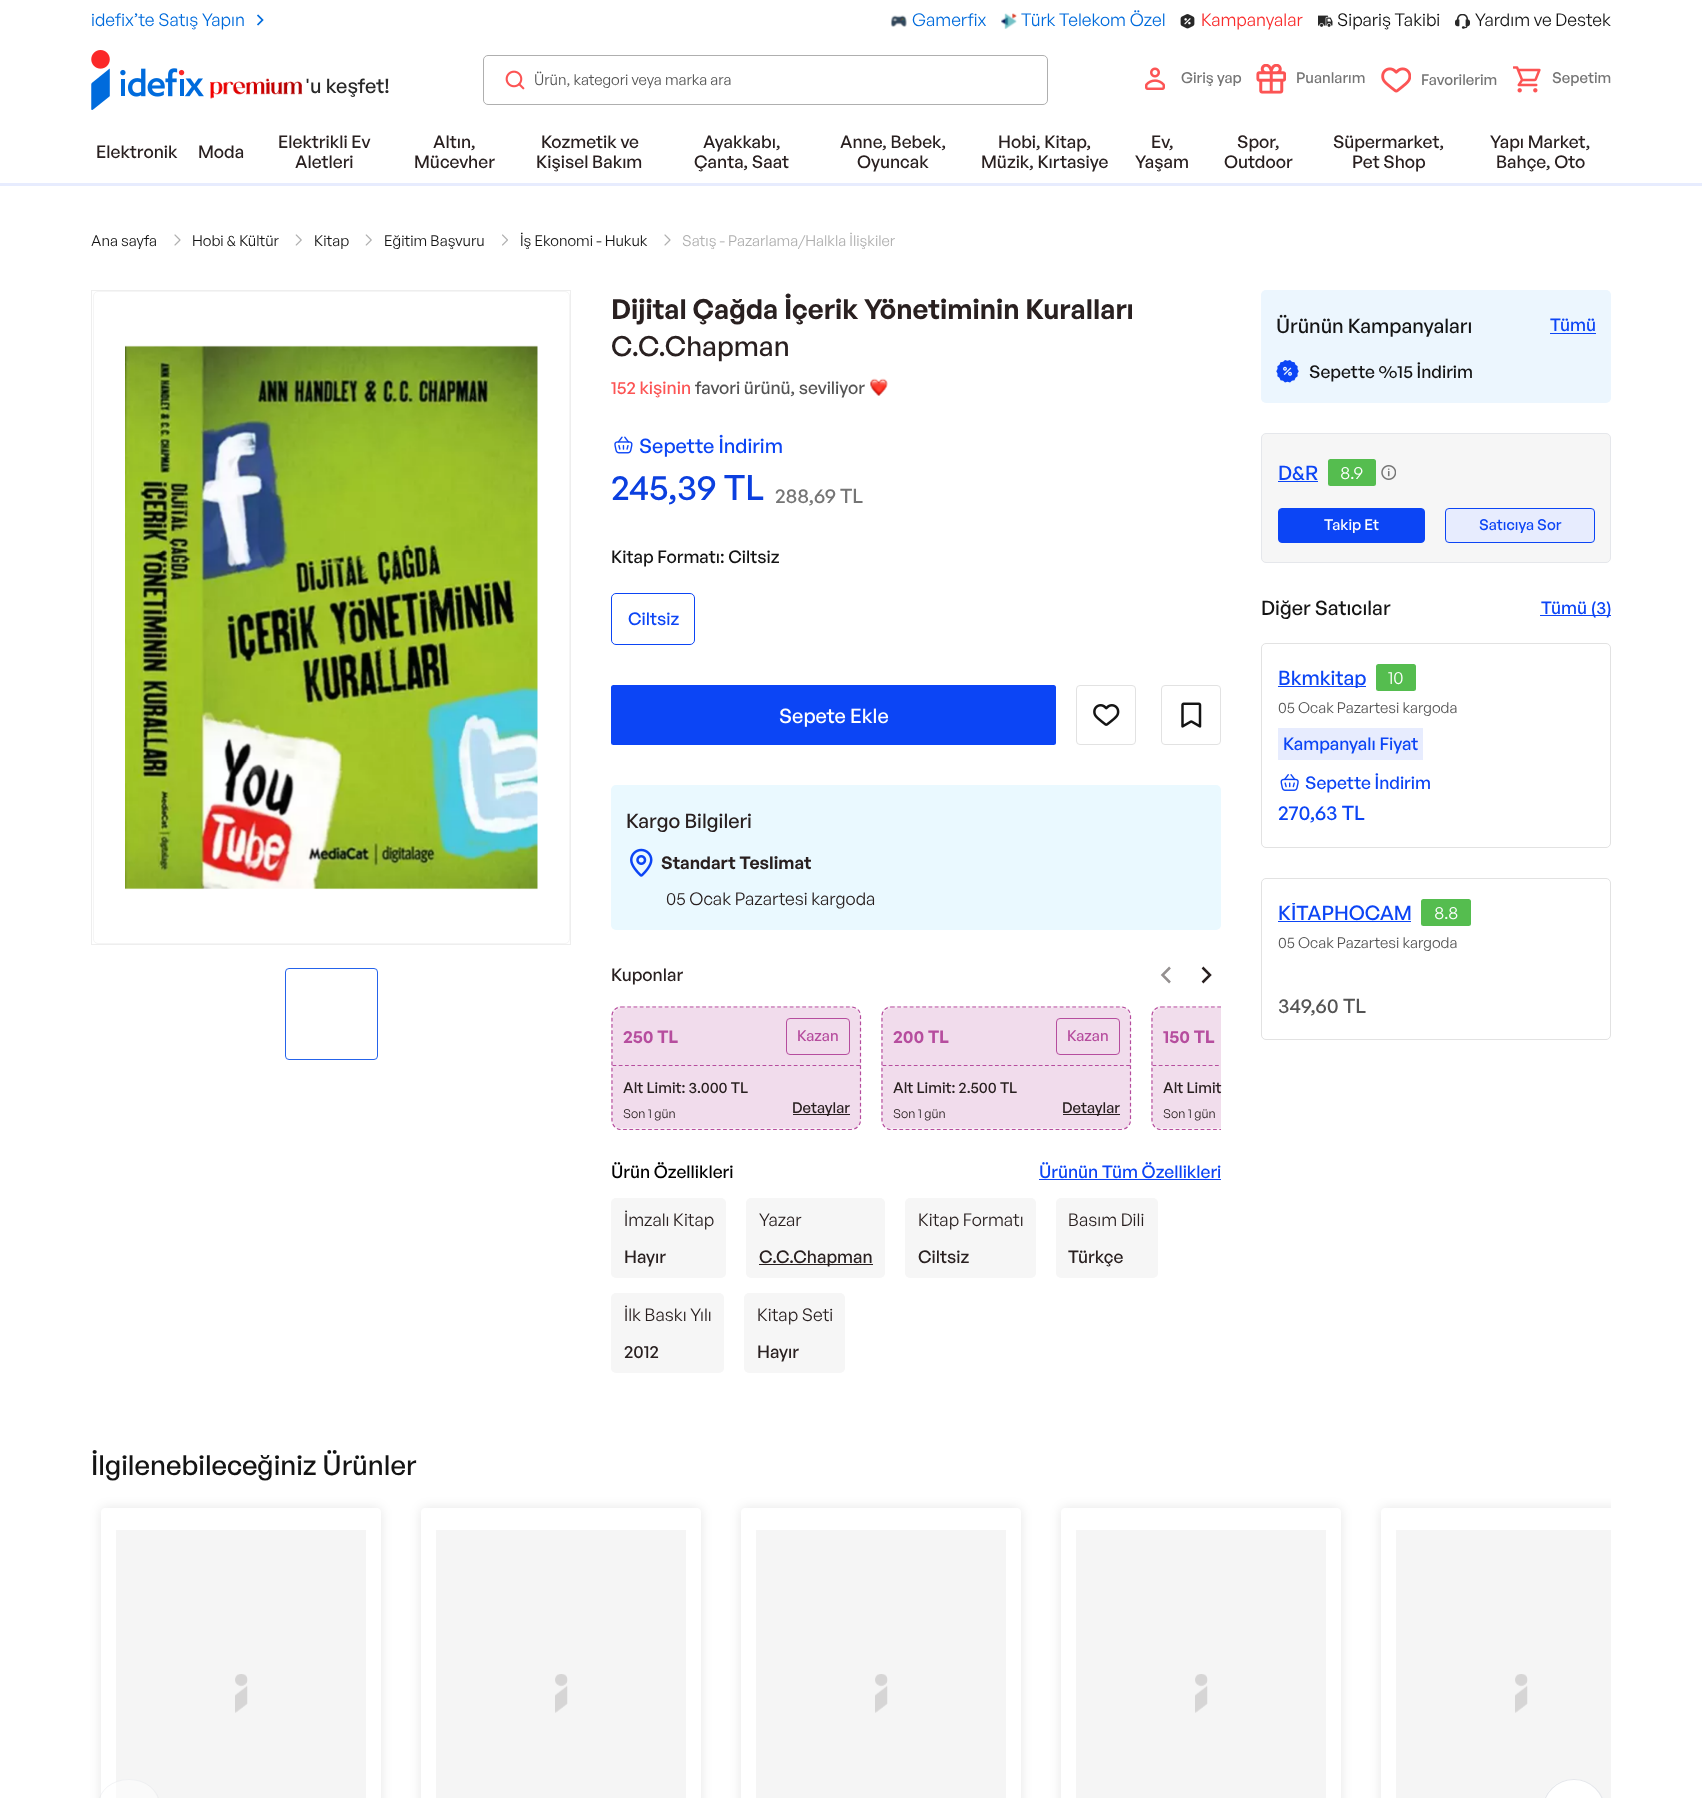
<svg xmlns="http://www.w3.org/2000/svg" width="1702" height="1798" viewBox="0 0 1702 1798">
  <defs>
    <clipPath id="clip1"><rect x="611" y="1005" width="610" height="125"/></clipPath>
    <clipPath id="clip2"><rect x="613" y="1008" width="247" height="121" rx="9"/></clipPath>
    <clipPath id="clip3"><rect x="883" y="1008" width="247" height="121" rx="9"/></clipPath>
    <clipPath id="clip4"><rect x="1153" y="1008" width="247" height="121" rx="9"/></clipPath>
    <clipPath id="clip5"><rect x="1278" y="668" width="88" height="20"/></clipPath>
    <clipPath id="clip6"><rect x="1278" y="903" width="133" height="20"/></clipPath>
    <clipPath id="clip7"><path d="M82 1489H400V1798H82ZM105 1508H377C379 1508 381 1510 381 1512V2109C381 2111 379 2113 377 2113H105C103 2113 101 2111 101 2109V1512C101 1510 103 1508 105 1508Z" clip-rule="evenodd"/></clipPath>
    <clipPath id="clip8"><path d="M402 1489H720V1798H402ZM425 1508H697C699 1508 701 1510 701 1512V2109C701 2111 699 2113 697 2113H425C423 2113 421 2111 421 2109V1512C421 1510 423 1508 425 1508Z" clip-rule="evenodd"/></clipPath>
    <clipPath id="clip9"><path d="M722 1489H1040V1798H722ZM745 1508H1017C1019 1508 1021 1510 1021 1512V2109C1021 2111 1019 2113 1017 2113H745C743 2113 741 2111 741 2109V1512C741 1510 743 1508 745 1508Z" clip-rule="evenodd"/></clipPath>
    <clipPath id="clip10"><path d="M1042 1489H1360V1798H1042ZM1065 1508H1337C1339 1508 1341 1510 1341 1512V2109C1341 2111 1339 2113 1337 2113H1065C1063 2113 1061 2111 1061 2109V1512C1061 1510 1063 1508 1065 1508Z" clip-rule="evenodd"/></clipPath>
    <clipPath id="clip11"><rect x="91" y="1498" width="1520" height="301"/></clipPath>
    <clipPath id="clip12"><path d="M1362 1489H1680V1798H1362ZM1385 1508H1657C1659 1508 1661 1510 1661 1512V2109C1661 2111 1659 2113 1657 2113H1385C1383 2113 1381 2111 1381 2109V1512C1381 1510 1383 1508 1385 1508Z" clip-rule="evenodd"/></clipPath>
  </defs>
  <rect width="100%" height="100%" fill="rgb(255,255,255)"/>
  <text x="91" y="26" font-family="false" font-size="17.5" fill="rgb(0,107,220)">idefix’te Satış Yapın</text>
  <image x="257" y="14" width="7" height="12" href="pic1.png"/>
  <image x="890" y="15" width="17" height="12" href="pic2.png"/>
  <text x="912" y="26" font-family="false" font-size="17.5" fill="rgb(0,107,220)">Gamerfix</text>
  <image x="1001" y="13" width="16" height="16" href="pic3.png"/>
  <text x="1021" y="26" font-family="false" font-size="17.5" fill="rgb(0,107,220)">Türk Telekom Özel</text>
  <image x="1180" y="14" width="15" height="15" href="pic4.png"/>
  <text x="1201" y="26" font-family="false" font-size="17.5" fill="rgb(249,44,44)">Kampanyalar</text>
  <image x="1318" y="15" width="15" height="12" href="pic5.png"/>
  <text x="1337" y="26" font-family="false" font-size="17.5" fill="rgb(13,13,13)">Sipariş Takibi</text>
  <image x="1455" y="14" width="15" height="15" href="pic6.png"/>
  <text x="1475" y="26" font-family="false" font-size="17.5" fill="rgb(20,20,20)">Yardım ve Destek</text>
  <image x="91" y="50" width="113" height="60" href="pic7.png"/>
  <image x="210" y="78" width="93" height="21" href="pic8.png"/>
  <text x="305" y="93" font-family="General Sans" font-size="20" font-weight="500" fill="rgb(40,40,40)">'u keşfet!</text>
  <rect x="483.5" y="55.5" width="564" height="49" rx="4.5" fill="none" stroke="rgb(175,175,175)"/>
  <image x="505" y="70" width="20" height="20" href="pic9.png"/>
  <text x="534" y="85" font-family="false" font-size="15" fill="rgb(84,84,84)">Ürün, kategori veya marka ara</text>
  <image x="1145" y="67" width="20" height="23" href="pic10.png"/>
  <text x="1181" y="83" font-family="General Sans" font-size="15" font-weight="500" fill="rgb(117,117,117)">Giriş yap</text>
  <image x="1256" y="64" width="30" height="30" href="pic11.png"/>
  <text x="1296" y="83" font-family="General Sans" font-size="15" font-weight="500" fill="rgb(117,117,117)">Puanlarım</text>
  <image x="1381" y="67" width="30" height="26" href="pic12.png"/>
  <text x="1421" y="85" font-family="General Sans" font-size="15" font-weight="500" fill="rgb(117,117,117)">Favorilerim</text>
  <image x="1513" y="66" width="28" height="27" href="pic13.png"/>
  <text x="1552" y="83" font-family="General Sans" font-size="15" font-weight="500" fill="rgb(117,117,117)">Sepetim</text>
  <rect x="0" y="183" width="1702" height="3" fill="rgb(231,236,254)"/>
  <g font-family="General Sans" font-size="17.5" font-weight="500" fill="rgb(41,32,32)">
    <text x="96" y="158">Elektronik</text>
    <text x="198" y="158">Moda</text>
    <text x="278" y="148">Elektrikli Ev</text>
    <text x="295" y="168">Aletleri</text>
    <text x="433" y="148">Altın,</text>
    <text x="414" y="168">Mücevher</text>
    <text x="541" y="148">Kozmetik ve</text>
    <text x="536" y="168">Kişisel Bakım</text>
    <text x="703" y="148">Ayakkabı,</text>
    <text x="694" y="168">Çanta, Saat</text>
    <text x="840" y="148">Anne, Bebek,</text>
    <text x="857" y="168">Oyuncak</text>
    <text x="998" y="148">Hobi, Kitap,</text>
    <text x="981" y="168">Müzik, Kırtasiye</text>
    <text x="1151" y="148">Ev,</text>
    <text x="1135" y="168">Yaşam</text>
    <text x="1237" y="148">Spor,</text>
    <text x="1224" y="168">Outdoor</text>
    <text x="1333" y="148">Süpermarket,</text>
    <text x="1352" y="168">Pet Shop</text>
    <text x="1490" y="148">Yapı Market,</text>
    <text x="1496" y="168">Bahçe, Oto</text>
  </g>
  <text x="91" y="246" font-family="false" font-size="15" fill="rgb(20,20,20)">Ana sayfa</text>
  <image x="174" y="234" width="7" height="12" href="pic14.png"/>
  <text x="192" y="246" font-family="false" font-size="15" fill="rgb(20,20,20)">Hobi &amp; Kültür</text>
  <image x="295" y="234" width="7" height="12" href="pic15.png"/>
  <text x="314" y="246" font-family="false" font-size="15" fill="rgb(20,20,20)">Kitap</text>
  <image x="365" y="234" width="7" height="12" href="pic15.png"/>
  <text x="384" y="246" font-family="false" font-size="15" fill="rgb(20,20,20)">Eğitim Başvuru</text>
  <image x="502" y="234" width="6" height="12" href="pic16.png"/>
  <text x="520" y="246" font-family="false" font-size="15" fill="rgb(20,20,20)">İş Ekonomi - Hukuk</text>
  <image x="664" y="234" width="7" height="12" href="pic14.png"/>
  <text x="682" y="246" font-family="false" font-size="15" fill="rgb(175,175,175)">Satış - Pazarlama/Halkla İlişkiler</text>
  <rect x="91.5" y="290.5" width="479" height="654" fill="none" stroke="rgb(238,238,238)"/>
  <rect x="93.5" y="291.5" width="476" height="652" rx="4.5" fill="none" stroke="rgb(245,245,245)"/>
  <image x="125" y="345" width="413" height="545" href="pic17.png"/>
  <rect x="285.5" y="968.5" width="92" height="91" rx="3.5" fill="none" stroke="rgb(37,99,235)"/>
  <text x="611" y="319" font-family="General Sans" font-size="27.5" font-weight="600" fill="rgb(41,32,32)">Dijital Çağda İçerik Yönetiminin Kuralları</text>
  <text x="611" y="356" font-family="General Sans" font-size="27.5" font-weight="500" fill="rgb(41,32,32)">C.C.Chapman</text>
  <text x="611" y="394" font-family="General Sans" font-size="17.5" font-weight="500" fill="rgb(252,84,84)">152 kişinin</text>
  <text x="695" y="394" font-family="General Sans" font-size="17.5" font-weight="500" fill="rgb(84,84,84)">favori ürünü, seviliyor</text>
  <image x="870" y="378" width="18" height="18" href="pic18.png"/>
  <image x="614" y="436" width="19" height="18" href="pic19.png"/>
  <text x="639" y="453" font-family="General Sans" font-size="20" font-weight="500" fill="rgb(12,69,245)">Sepette İndirim</text>
  <text x="611" y="500" font-family="General Sans" font-size="35" font-weight="500" fill="rgb(11,63,223)">245,39 TL</text>
  <text x="775" y="503" font-family="General Sans" font-size="20" font-weight="500" fill="rgb(117,117,117)">288,69 TL</text>
  <text x="611" y="563" font-family="General Sans" font-size="17.5" font-weight="500" fill="rgb(20,20,20)">Kitap Formatı: Ciltsiz</text>
  <rect x="611.5" y="593.5" width="83" height="51" rx="4.5" fill="none" stroke="rgb(12,69,245)"/>
  <text x="628" y="625" font-family="General Sans" font-size="17.5" font-weight="500" fill="rgb(12,69,245)">Ciltsiz</text>
  <rect x="611" y="685" width="445" height="60" rx="2.5" fill="rgb(12,69,245)"/>
  <text x="779" y="723" font-family="General Sans" font-size="20" font-weight="500" fill="rgb(255,255,255)">Sepete Ekle</text>
  <rect x="1076.5" y="685.5" width="59" height="59" rx="3.5" fill="none" stroke="rgb(226,226,226)"/>
  <image x="1093" y="704" width="27" height="22" href="pic20.png"/>
  <rect x="1161.5" y="685.5" width="59" height="59" rx="3.5" fill="none" stroke="rgb(226,226,226)"/>
  <image x="1181" y="702" width="21" height="26" href="pic21.png"/>
  <rect x="611" y="785" width="610" height="145" rx="5" fill="rgb(234,249,255)"/>
  <text x="626" y="828" font-family="General Sans" font-size="20" font-weight="500" fill="rgb(41,32,32)">Kargo Bilgileri</text>
  <image x="630" y="848" width="23" height="29" href="pic22.png"/>
  <text x="661" y="869" font-family="General Sans" font-size="17.5" font-weight="600" fill="rgb(41,32,32)">Standart Teslimat</text>
  <text x="666" y="905" font-family="false" font-size="17.5" fill="rgb(41,32,32)">05 Ocak Pazartesi kargoda</text>
  <text x="611" y="981" font-family="General Sans" font-size="17.5" font-weight="500" fill="rgb(41,32,32)">Kuponlar</text>
  <path d="M1170 967.5L1162.5 975L1170 982.5" fill="none" stroke="rgb(148,144,144)" stroke-width="2.5"/>
  <path d="M1202.5 982.5L1210 975L1202.5 967.5" fill="none" stroke="rgb(41,32,32)" stroke-width="2.5"/>
  <rect x="611" y="1006" width="250" height="124" rx="10" fill="rgb(248,237,245)"/>
  <g clip-path="url(#clip1)">
    <path d="M621 1007H851C856.5 1007 860.5 1011 860.5 1016V1120C860.5 1125 856.5 1129.5 851 1129.5H621C616 1129.5 612 1125 612 1120V1016C612 1011 616 1007 621 1007Z" fill="none" stroke="rgb(182,77,158)" stroke-width="1.2" stroke-dasharray="3.75 2.5"/>
  </g>
  <g clip-path="url(#clip2)">
    <path d="M622 1008H851C856 1008 860 1012 860 1017V1128H613V1017C613 1012 617 1008 622 1008Z" fill="rgba(182,77,158,0.1)"/>
  </g>
  <text x="623" y="1043" font-family="General Sans" font-size="17.5" font-weight="600" fill="rgb(182,77,158)">250 TL</text>
  <rect x="786.5" y="1018.5" width="63" height="36" rx="3.5" fill="none" stroke="rgb(182,77,158)"/>
  <text x="797" y="1041" font-family="General Sans" font-size="15" font-weight="500" fill="rgb(182,77,158)">Kazan</text>
  <path d="M612.5 1065.5H860" fill="none" stroke="rgb(182,77,158)" stroke-width="1.2" stroke-dasharray="3.75 2.5"/>
  <text x="623" y="1093" font-family="General Sans" font-size="15" font-weight="500" fill="rgb(41,32,32)">Alt Limit: 3.000 TL</text>
  <text x="623" y="1118" font-family="false" font-size="12.5" fill="rgb(41,32,32)">Son 1 gün</text>
  <rect x="793" y="1114" width="57" height="1" fill="rgb(41,32,32)"/>
  <text x="792" y="1113" font-family="General Sans" font-size="15" font-weight="500" fill="rgb(41,32,32)">Detaylar</text>
  <rect x="881" y="1006" width="250" height="124" rx="10" fill="rgb(248,237,245)"/>
  <g clip-path="url(#clip1)">
    <path d="M891 1007H1121C1126.5 1007 1130.5 1011 1130.5 1016V1120C1130.5 1125 1126.5 1129.5 1121 1129.5H891C886 1129.5 882 1125 882 1120V1016C882 1011 886 1007 891 1007Z" fill="none" stroke="rgb(182,77,158)" stroke-width="1.2" stroke-dasharray="3.75 2.5"/>
  </g>
  <g clip-path="url(#clip3)">
    <path d="M892 1008H1121C1126 1008 1130 1012 1130 1017V1128H883V1017C883 1012 887 1008 892 1008Z" fill="rgba(182,77,158,0.1)"/>
  </g>
  <text x="893" y="1043" font-family="General Sans" font-size="17.5" font-weight="600" fill="rgb(182,77,158)">200 TL</text>
  <rect x="1056.5" y="1018.5" width="63" height="36" rx="3.5" fill="none" stroke="rgb(182,77,158)"/>
  <text x="1067" y="1041" font-family="General Sans" font-size="15" font-weight="500" fill="rgb(182,77,158)">Kazan</text>
  <path d="M882.5 1065.5H1130" fill="none" stroke="rgb(182,77,158)" stroke-width="1.2" stroke-dasharray="3.75 2.5"/>
  <text x="893" y="1093" font-family="General Sans" font-size="15" font-weight="500" fill="rgb(41,32,32)">Alt Limit: 2.500 TL</text>
  <text x="893" y="1118" font-family="false" font-size="12.5" fill="rgb(41,32,32)">Son 1 gün</text>
  <rect x="1063" y="1114" width="57" height="1" fill="rgb(41,32,32)"/>
  <text x="1062" y="1113" font-family="General Sans" font-size="15" font-weight="500" fill="rgb(41,32,32)">Detaylar</text>
  <path d="M1161 1006H1221V1130H1161C1155.5 1130 1151 1125.5 1151 1120V1016C1151 1010.5 1155.5 1006 1161 1006Z" fill="rgb(248,237,245)"/>
  <g clip-path="url(#clip1)">
    <path d="M1161 1007H1391C1396.5 1007 1400.5 1011 1400.5 1016V1120C1400.5 1125 1396.5 1129.5 1391 1129.5H1161C1156 1129.5 1152 1125 1152 1120V1016C1152 1011 1156 1007 1161 1007Z" fill="none" stroke="rgb(182,77,158)" stroke-width="1.2" stroke-dasharray="3.75 2.5"/>
  </g>
  <g clip-path="url(#clip4)">
    <path d="M1162 1008H1221V1128H1153V1017C1153 1012 1157 1008 1162 1008Z" fill="rgb(241,221,236)"/>
  </g>
  <text x="1163" y="1043" font-family="General Sans" font-size="17.5" font-weight="600" fill="rgb(182,77,158)">150 TL</text>
  <g clip-path="url(#clip1)">
    <path d="M1152.5 1065.5H1400" fill="none" stroke="rgb(182,77,158)" stroke-width="1.2" stroke-dasharray="3.75 2.5"/>
  </g>
  <text x="1163" y="1093" font-family="General Sans" font-size="15" font-weight="500" fill="rgb(41,32,32)">Alt Limit</text>
  <text x="1163" y="1118" font-family="false" font-size="12.5" fill="rgb(41,32,32)">Son 1 gün</text>
  <text x="611" y="1178" font-family="General Sans" font-size="17.5" font-weight="500" fill="rgb(0,0,0)">Ürün Özellikleri</text>
  <text x="1039" y="1178" font-family="General Sans" font-size="17.5" font-weight="500" fill="rgb(12,69,245)">Ürünün Tüm Özellikleri</text>
  <rect x="1039" y="1179" width="182" height="1" fill="rgb(12,69,245)"/>
  <rect x="611" y="1198" width="115" height="80" rx="5" fill="rgb(246,246,246)"/>
  <text x="624" y="1226" font-family="false" font-size="17.5" fill="rgb(41,32,32)">İmzalı Kitap</text>
  <text x="624" y="1263" font-family="General Sans" font-size="17.5" font-weight="500" fill="rgb(41,32,32)">Hayır</text>
  <rect x="746" y="1198" width="139" height="80" rx="5" fill="rgb(246,246,246)"/>
  <text x="759" y="1226" font-family="false" font-size="17.5" fill="rgb(41,32,32)">Yazar</text>
  <rect x="759" y="1264" width="114" height="1" fill="rgb(41,32,32)"/>
  <text x="759" y="1263" font-family="General Sans" font-size="17.5" font-weight="500" fill="rgb(41,32,32)">C.C.Chapman</text>
  <rect x="905" y="1198" width="131" height="80" rx="5" fill="rgb(246,246,246)"/>
  <text x="918" y="1226" font-family="false" font-size="17.5" fill="rgb(41,32,32)">Kitap Formatı</text>
  <text x="918" y="1263" font-family="General Sans" font-size="17.5" font-weight="500" fill="rgb(41,32,32)">Ciltsiz</text>
  <rect x="1056" y="1198" width="102" height="80" rx="5" fill="rgb(246,246,246)"/>
  <text x="1068" y="1226" font-family="false" font-size="17.5" fill="rgb(41,32,32)">Basım Dili</text>
  <text x="1068" y="1263" font-family="General Sans" font-size="17.5" font-weight="500" fill="rgb(41,32,32)">Türkçe</text>
  <rect x="611" y="1293" width="113" height="80" rx="5" fill="rgb(246,246,246)"/>
  <text x="624" y="1321" font-family="false" font-size="17.5" fill="rgb(41,32,32)">İlk Baskı Yılı</text>
  <text x="624" y="1358" font-family="General Sans" font-size="17.5" font-weight="500" fill="rgb(41,32,32)">2012</text>
  <rect x="744" y="1293" width="101" height="80" rx="5" fill="rgb(246,246,246)"/>
  <text x="757" y="1321" font-family="false" font-size="17.5" fill="rgb(41,32,32)">Kitap Seti</text>
  <text x="757" y="1358" font-family="General Sans" font-size="17.5" font-weight="500" fill="rgb(41,32,32)">Hayır</text>
  <rect x="1261" y="290" width="350" height="113" rx="5" fill="rgb(236,246,254)"/>
  <text x="1276" y="333" font-family="General Sans" font-size="20" font-weight="500" fill="rgb(20,20,20)">Ürünün Kampanyaları</text>
  <text x="1550" y="331" font-family="General Sans" font-size="17.5" font-weight="500" fill="rgb(12,69,245)">Tümü</text>
  <rect x="1550" y="333" width="46" height="1" fill="rgb(12,69,245)"/>
  <image x="1276" y="360" width="23" height="23" href="pic23.png"/>
  <text x="1309" y="378" font-family="General Sans" font-size="17.5" font-weight="500" fill="rgb(20,20,20)">Sepette %15 İndirim</text>
  <rect x="1261.5" y="433.5" width="349" height="129" rx="4.5" fill="rgb(246,246,246)" stroke="rgb(229,231,235)"/>
  <text x="1278" y="480" font-family="General Sans" font-size="20" font-weight="500" fill="rgb(12,69,245)">D&amp;R</text>
  <rect x="1278" y="481" width="40" height="1" fill="rgb(12,69,245)"/>
  <rect x="1328" y="459" width="48" height="27" rx="2.5" fill="rgb(85,189,79)"/>
  <text x="1340" y="479" font-family="false" font-size="17.5" fill="rgb(255,255,255)">8.9</text>
  <image x="1381" y="465" width="15" height="15" href="pic24.png"/>
  <rect x="1278.5" y="508.5" width="146" height="34" rx="3.5" fill="rgb(12,69,245)" stroke="rgb(12,69,245)"/>
  <text x="1324" y="530" font-family="General Sans" font-size="15" font-weight="500" fill="rgb(255,255,255)">Takip Et</text>
  <rect x="1445.5" y="508.5" width="149" height="34" rx="3.5" fill="rgb(231,236,254)" stroke="rgb(12,69,245)"/>
  <text x="1479" y="530" font-family="General Sans" font-size="15" font-weight="500" fill="rgb(12,69,245)">Satıcıya Sor</text>
  <text x="1261" y="615" font-family="General Sans" font-size="20" font-weight="500" fill="rgb(20,20,20)">Diğer Satıcılar</text>
  <rect x="1540" y="615" width="71" height="1" fill="rgb(12,69,245)"/>
  <text x="1541" y="614" font-family="General Sans" font-size="17.5" font-weight="500" fill="rgb(12,69,245)">Tümü (3)</text>
  <rect x="1261.5" y="643.5" width="349" height="204" rx="4.5" fill="none" stroke="rgb(226,226,226)"/>
  <rect x="1278" y="686" width="88" height="1" fill="rgb(12,69,245)"/>
  <g clip-path="url(#clip5)">
    <text x="1278" y="685" font-family="General Sans" font-size="20" font-weight="500" fill="rgb(12,69,245)">Bkmkitap</text>
  </g>
  <rect x="1376" y="664" width="40" height="27" rx="2.5" fill="rgb(85,189,79)"/>
  <text x="1388" y="684" font-family="false" font-size="17.5" fill="rgb(255,255,255)">10</text>
  <text x="1278" y="713" font-family="false" font-size="15" fill="rgb(84,84,84)">05 Ocak Pazartesi kargoda</text>
  <rect x="1278" y="728" width="145" height="32" fill="rgb(231,236,254)"/>
  <text x="1283" y="750" font-family="General Sans" font-size="17.5" font-weight="500" fill="rgb(12,69,245)">Kampanyalı Fiyat</text>
  <image x="1280" y="774" width="19" height="17" href="pic25.png"/>
  <text x="1305" y="789" font-family="General Sans" font-size="17.5" font-weight="500" fill="rgb(12,69,245)">Sepette İndirim</text>
  <text x="1278" y="820" font-family="General Sans" font-size="20" font-weight="500" fill="rgb(12,69,245)">270,63 TL</text>
  <rect x="1261.5" y="878.5" width="349" height="161" rx="4.5" fill="none" stroke="rgb(226,226,226)"/>
  <g clip-path="url(#clip6)">
    <text x="1278" y="920" font-family="General Sans" font-size="20" font-weight="500" fill="rgb(12,69,245)">KİTAPHOCAM</text>
  </g>
  <rect x="1278" y="921" width="133" height="1" fill="rgb(12,69,245)"/>
  <rect x="1421" y="899" width="50" height="27" rx="2.5" fill="rgb(85,189,79)"/>
  <text x="1434" y="919" font-family="false" font-size="17.5" fill="rgb(255,255,255)">8.8</text>
  <text x="1278" y="948" font-family="false" font-size="15" fill="rgb(84,84,84)">05 Ocak Pazartesi kargoda</text>
  <text x="1278" y="1013" font-family="General Sans" font-size="20" font-weight="500" fill="rgb(84,84,84)">349,60 TL</text>
  <text x="91" y="1475" font-family="General Sans" font-size="27.5" font-weight="500" fill="rgb(20,20,20)">İlgilenebileceğiniz Ürünler</text>
  <g clip-path="url(#clip7)">
    <rect x="101" y="1508" width="280" height="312" rx="4" fill="rgba(0,0,0,0.1)" filter="blur(6px)"/>
  </g>
  <rect x="116" y="1530" width="250" height="268" fill="rgb(245,245,245)"/>
  <image x="235" y="1674" width="13" height="39" href="pic26.png"/>
  <g clip-path="url(#clip8)">
    <rect x="421" y="1508" width="280" height="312" rx="4" fill="rgba(0,0,0,0.1)" filter="blur(6px)"/>
  </g>
  <rect x="436" y="1530" width="250" height="268" fill="rgb(245,245,245)"/>
  <image x="555" y="1674" width="13" height="39" href="pic26.png"/>
  <g clip-path="url(#clip9)">
    <rect x="741" y="1508" width="280" height="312" rx="4" fill="rgba(0,0,0,0.1)" filter="blur(6px)"/>
  </g>
  <rect x="756" y="1530" width="250" height="268" fill="rgb(245,245,245)"/>
  <image x="875" y="1674" width="13" height="39" href="pic26.png"/>
  <g clip-path="url(#clip10)">
    <rect x="1061" y="1508" width="280" height="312" rx="4" fill="rgba(0,0,0,0.1)" filter="blur(6px)"/>
  </g>
  <rect x="1076" y="1530" width="250" height="268" fill="rgb(245,245,245)"/>
  <image x="1195" y="1674" width="13" height="39" href="pic26.png"/>
  <g clip-path="url(#clip11)">
    <g clip-path="url(#clip12)">
      <rect x="1381" y="1508" width="280" height="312" rx="4" fill="rgba(0,0,0,0.1)" filter="blur(6px)"/>
    </g>
  </g>
  <rect x="1396" y="1530" width="215" height="268" fill="rgb(245,245,245)"/>
  <image x="1515" y="1674" width="13" height="39" href="pic26.png"/>
  <path d="M129 1779C146 1779 160 1793 160 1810V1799H98V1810C98 1793 112 1779 129 1779Z" fill="rgba(255,255,255,0.5)"/>
  <rect x="98.5" y="1779.5" width="61" height="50" rx="30.5" fill="none" stroke="rgba(229,231,235,0.5)"/>
  <path d="M1574 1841C1556 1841 1542 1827 1542 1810C1542 1793 1556 1779 1574 1779C1591 1779 1605 1793 1605 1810C1605 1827 1591 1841 1574 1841Z" fill="rgb(255,255,255)"/>
  <path d="M1574 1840.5C1557 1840.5 1543 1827 1543 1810C1543 1793 1557 1779.5 1574 1779.5C1590.5 1779.5 1604.5 1793 1604.5 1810C1604.5 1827 1590.5 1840.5 1574 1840.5Z" fill="none" stroke="rgb(229,231,235)" stroke-width="1.2"/>
</svg>
